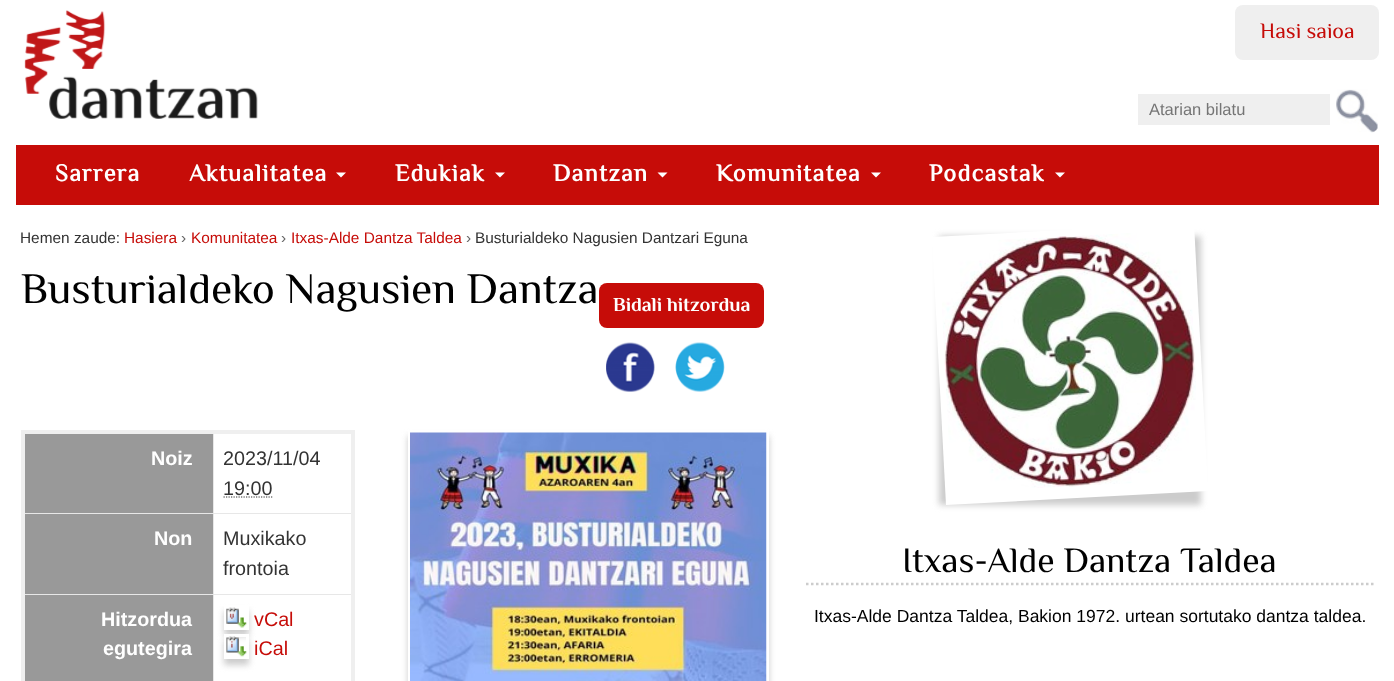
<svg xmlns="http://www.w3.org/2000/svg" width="1394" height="681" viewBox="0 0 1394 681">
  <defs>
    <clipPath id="clip1"><path d="M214 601H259V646H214ZM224 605H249V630H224Z" clip-rule="evenodd"/></clipPath>
    <clipPath id="clip2"><path d="M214 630H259V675H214ZM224 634H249V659H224Z" clip-rule="evenodd"/></clipPath>
  </defs>
  <rect width="100%" height="100%" fill="rgb(255,255,255)"/>
  <image x="24" y="10" width="234" height="109" href="pic1.png"/>
  <rect x="1235" y="5" width="144" height="55" rx="8" fill="rgb(239,239,239)"/>
  <text x="1260" y="38" font-family="El Messiri" font-size="22" fill="rgb(198,12,8)">Hasi saioa</text>
  <rect x="1138" y="94" width="192" height="31" fill="rgb(239,239,239)"/>
  <text x="1149" y="115" font-family="Liberation Sans" font-size="16.5" fill="rgb(117,117,117)">Atarian bilatu</text>
  <image x="1336" y="89" width="42" height="44" href="pic2.png"/>
  <rect x="16" y="145" width="1363" height="60" fill="rgb(198,12,8)"/>
  <g font-family="'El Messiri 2'" font-size="24.25" font-weight="bold" letter-spacing="1.25" fill="rgb(255,255,255)">
    <text x="55" y="181">Sarrera</text>
    <text x="189" y="181">Aktualitatea</text>
  </g>
  <path d="M336 172.5H346L341 177.5Z" fill="rgb(255,255,255)"/>
  <text x="395" y="181" font-family="'El Messiri 2'" font-size="24.25" font-weight="bold" letter-spacing="1.25" fill="rgb(255,255,255)">Edukiak</text>
  <path d="M495 172.5H505L500 177.5Z" fill="rgb(255,255,255)"/>
  <text x="553" y="181" font-family="'El Messiri 2'" font-size="24.25" font-weight="bold" letter-spacing="1.25" fill="rgb(255,255,255)">Dantzan</text>
  <path d="M657.5 172.5H667.5L662.5 177.5Z" fill="rgb(255,255,255)"/>
  <text x="716" y="181" font-family="'El Messiri 2'" font-size="24.25" font-weight="bold" letter-spacing="1.25" fill="rgb(255,255,255)">Komunitatea</text>
  <path d="M871 172.5H881L876 177.5Z" fill="rgb(255,255,255)"/>
  <text x="929" y="181" font-family="'El Messiri 2'" font-size="24.25" font-weight="bold" letter-spacing="1.25" fill="rgb(255,255,255)">Podcastak</text>
  <path d="M1055 172.5H1065L1060 177.5Z" fill="rgb(255,255,255)"/>
  <text x="20" y="243" font-family="Liberation Sans" font-size="15.4" fill="rgb(51,51,51)">Hemen zaude:</text>
  <text x="124" y="243" font-family="Liberation Sans" font-size="15.4" fill="rgb(198,12,8)">Hasiera</text>
  <text x="181" y="243" font-family="Liberation Sans" font-size="15.4" fill="rgb(102,102,102)">›</text>
  <text x="191" y="243" font-family="Liberation Sans" font-size="15.4" fill="rgb(198,12,8)">Komunitatea</text>
  <text x="281" y="243" font-family="Liberation Sans" font-size="15.4" fill="rgb(102,102,102)">›</text>
  <text x="291" y="243" font-family="Liberation Sans" font-size="15.4" fill="rgb(198,12,8)">Itxas-Alde Dantza Taldea</text>
  <text x="466" y="243" font-family="Liberation Sans" font-size="15.4" fill="rgb(102,102,102)">›</text>
  <text x="475" y="243" font-family="Liberation Sans" font-size="15.4" fill="rgb(51,51,51)">Busturialdeko Nagusien Dantzari Eguna</text>
  <text x="21" y="303" font-family="El Messiri" font-size="43.5" fill="rgb(0,0,0)">Busturialdeko Nagusien Dantza</text>
  <rect x="599" y="283" width="165" height="45" rx="8" fill="rgb(198,12,8)"/>
  <text x="613" y="311" font-family="El Messiri" font-size="19.75" font-weight="bold" fill="rgb(255,255,255)">Bidali hitzordua</text>
  <image x="606" y="342" width="49" height="50" href="pic3.png"/>
  <image x="675" y="342" width="50" height="50" href="pic4.png"/>
  <rect x="23" y="513" width="331" height="1" fill="rgb(231,231,231)"/>
  <rect x="23" y="594" width="331" height="1" fill="rgb(231,231,231)"/>
  <rect x="213" y="594" width="1" height="87" fill="rgb(231,231,231)"/>
  <rect x="213" y="431" width="1" height="164" fill="rgb(231,231,231)"/>
  <rect x="21" y="430" width="334" height="4" fill="rgb(239,239,239)"/>
  <rect x="351" y="430" width="4" height="251" fill="rgb(239,239,239)"/>
  <rect x="21" y="430" width="4" height="251" fill="rgb(239,239,239)"/>
  <rect x="25" y="434" width="188" height="79" fill="rgb(153,153,153)"/>
  <text x="151" y="465" font-family="Liberation Sans" font-size="19.75" font-weight="bold" fill="rgb(255,255,255)">Noiz</text>
  <g font-family="Liberation Sans" font-size="19.75" fill="rgb(51,51,51)">
    <text>
      <tspan x="223" y="465">2023/11/04</tspan>
      <tspan x="223" y="495">19:00</tspan>
    </text>
  </g>
  <path d="M223.5 497H273" fill="none" stroke="rgb(51,51,51)" stroke-width="1.2" stroke-dasharray="1.25 1.25"/>
  <rect x="25" y="514" width="188" height="80" fill="rgb(153,153,153)"/>
  <text x="154" y="545" font-family="Liberation Sans" font-size="19.75" font-weight="bold" fill="rgb(255,255,255)">Non</text>
  <g font-family="Liberation Sans" font-size="19.75" fill="rgb(51,51,51)">
    <text>
      <tspan x="223" y="545">Muxikako</tspan>
      <tspan x="223" y="575">frontoia</tspan>
    </text>
  </g>
  <rect x="25" y="595" width="188" height="86" fill="rgb(153,153,153)"/>
  <g font-family="Liberation Sans" font-size="19.75" font-weight="bold" fill="rgb(255,255,255)">
    <text x="101" y="626">Hitzordua</text>
    <text x="103" y="655">egutegira</text>
  </g>
  <g clip-path="url(#clip1)">
    <rect x="224" y="611" width="25" height="25" fill="rgb(204,204,204)" filter="blur(3px)"/>
  </g>
  <rect x="225.5" y="606.5" width="22" height="22" fill="none" stroke="rgb(255,255,255)" stroke-width="3"/>
  <image x="226" y="607" width="21" height="21" href="pic5.png"/>
  <text x="254" y="626" font-family="Liberation Sans" font-size="19.75" fill="rgb(198,12,8)">vCal</text>
  <g clip-path="url(#clip2)">
    <rect x="224" y="640" width="25" height="25" fill="rgb(204,204,204)" filter="blur(3px)"/>
  </g>
  <rect x="225.5" y="635.5" width="22" height="22" fill="none" stroke="rgb(255,255,255)" stroke-width="3"/>
  <image x="226" y="636" width="21" height="21" href="pic6.png"/>
  <text x="254" y="655" font-family="Liberation Sans" font-size="19.75" fill="rgb(198,12,8)">iCal</text>
  <rect x="408" y="436" width="361" height="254" fill="rgb(204,204,204)" filter="blur(3px)"/>
  <rect x="409.5" y="431.5" width="358" height="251" fill="none" stroke="rgb(255,255,255)" stroke-width="3"/>
  <image x="410" y="432" width="357" height="249" href="pic7.png"/>
  <rect x="939" y="236" width="262" height="269" fill="rgb(204,204,204)" filter="blur(3px)"/>
  <path d="M932 237L1194 223L1208 491L946 505Z" fill="rgb(255,255,255)"/>
  <image x="942" y="233" width="254" height="255" href="pic8.png"/>
  <path d="M806 584H1374" fill="none" stroke="rgb(204,204,204)" stroke-width="2.5" stroke-dasharray="2.5 2.5"/>
  <text x="902" y="572" font-family="El Messiri" font-size="35.6" fill="rgb(0,0,0)">Itxas-Alde Dantza Taldea</text>
  <text x="814" y="622" font-family="Liberation Sans" font-size="17.5" fill="rgb(0,0,0)">Itxas-Alde Dantza Taldea, Bakion 1972. urtean sortutako dantza taldea.</text>
</svg>
